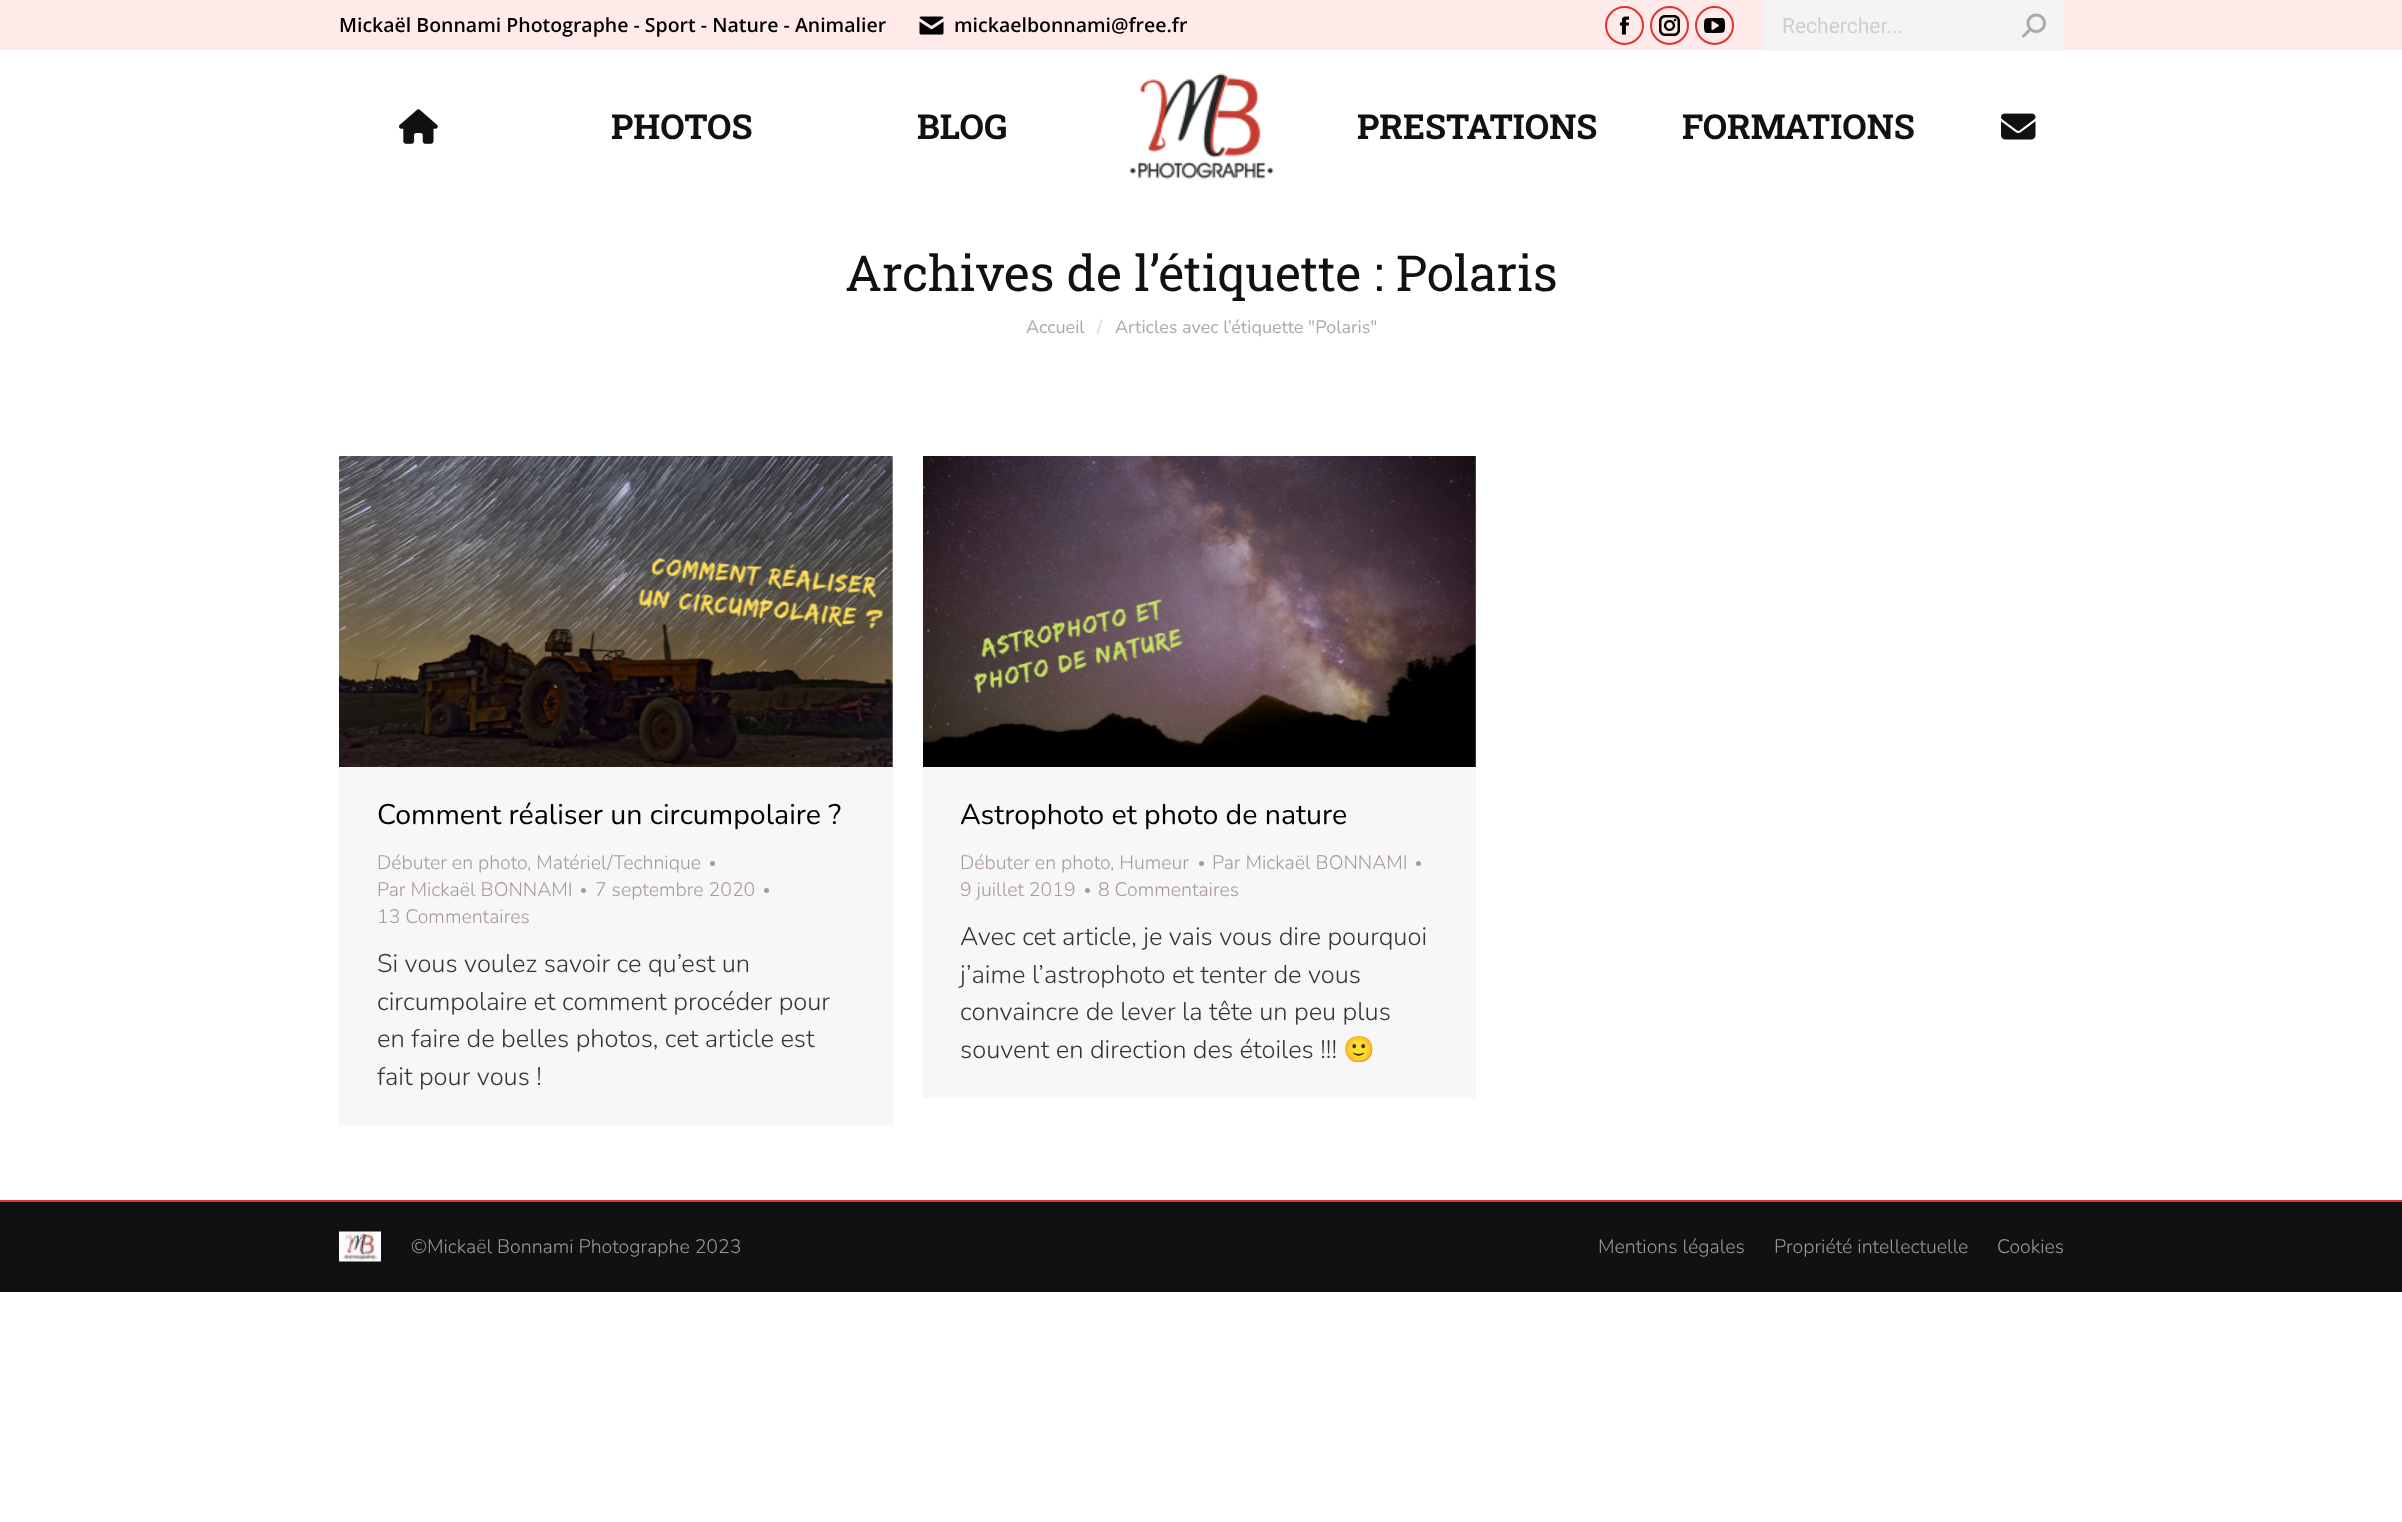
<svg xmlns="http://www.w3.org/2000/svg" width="2402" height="1522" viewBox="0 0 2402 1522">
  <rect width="100%" height="100%" fill="rgb(255,255,255)"/>
  <rect x="0" y="0" width="2402" height="50" fill="rgb(255,234,234)"/>
  <text x="339" y="32" font-family="Open Sans" font-size="19.5" font-weight="600" fill="rgb(0,0,0)">Mickaël Bonnami Photographe - Sport - Nature - Animalier</text>
  <image x="919" y="16" width="25" height="19" href="pic1.png"/>
  <text x="954" y="32" font-family="Open Sans" font-size="19.5" font-weight="600" fill="rgb(0,0,0)">mickaelbonnami@free.fr</text>
  <circle cx="1624.5" cy="25.5" r="18.5" fill="none" stroke="rgb(224,51,51)" stroke-width="2"/>
  <image x="1619" y="16" width="11" height="19" href="pic2.png"/>
  <circle cx="1669.5" cy="25.5" r="18.5" fill="none" stroke="rgb(224,51,51)" stroke-width="2"/>
  <image x="1659" y="15" width="21" height="21" href="pic3.png"/>
  <circle cx="1714.5" cy="25.5" r="18.5" fill="none" stroke="rgb(224,51,51)" stroke-width="2"/>
  <image x="1704" y="18" width="21" height="15" href="pic4.png"/>
  <rect x="1764" y="0" width="300" height="51" fill="rgb(244,244,244)"/>
  <text x="1782" y="33" font-family="Roboto" font-size="21" fill="rgb(207,207,207)">Rechercher...</text>
  <image x="2022" y="13" width="24" height="25" href="pic5.png"/>
  <image x="399" y="109" width="39" height="35" href="pic6.png"/>
  <g font-family="Roboto Slab" font-size="34.5" font-weight="bold" fill="rgb(17,17,17)">
    <text x="611" y="139">PHOTOS</text>
    <text x="917" y="139">BLOG</text>
  </g>
  <image x="1129" y="73" width="145" height="106" href="pic7.png"/>
  <g font-family="Roboto Slab" font-size="34.5" font-weight="bold" fill="rgb(17,17,17)">
    <text x="1357" y="139">PRESTATIONS</text>
    <text x="1682" y="139">FORMATIONS</text>
  </g>
  <image x="2001" y="113" width="35" height="27" href="pic8.png"/>
  <text x="845" y="291" font-family="Roboto Slab" font-size="49.5" fill="rgb(17,17,17)">Archives de l’étiquette : Polaris</text>
  <text x="1026" y="333" font-family="Nunito" font-size="18" fill="rgb(170,170,170)">Accueil</text>
  <text x="1097" y="333" font-family="Nunito" font-size="18" fill="rgb(213,213,213)">/</text>
  <text x="1115" y="333" font-family="Nunito" font-size="18" fill="rgb(170,170,170)">Articles avec l’étiquette "Polaris"</text>
  <rect x="339" y="456" width="554" height="669" fill="rgb(247,247,247)"/>
  <image x="339" y="456" width="554" height="311" href="pic9.png"/>
  <text x="377" y="824" font-family="Nunito" font-size="28.5" fill="rgb(0,0,0)">Comment réaliser un circumpolaire ?</text>
  <g font-family="Nunito" font-size="19.5" font-weight="300" fill="rgb(170,153,153)">
    <text x="377" y="869">Débuter en photo</text>
    <text x="527" y="869">, Matériel/Technique</text>
  </g>
  <circle cx="712.5" cy="863.5" r="2.5" fill="rgb(170,153,153)"/>
  <text x="377" y="896" font-family="Nunito" font-size="19.5" font-weight="300" fill="rgb(170,153,153)">Par Mickaël BONNAMI</text>
  <circle cx="583.5" cy="890.5" r="2.5" fill="rgb(170,153,153)"/>
  <text x="595" y="896" font-family="Nunito" font-size="19.5" font-weight="300" fill="rgb(170,153,153)">7 septembre 2020</text>
  <circle cx="766.5" cy="890.5" r="2.5" fill="rgb(170,153,153)"/>
  <text x="377" y="923" font-family="Nunito" font-size="19.5" font-weight="300" fill="rgb(170,153,153)">13 Commentaires</text>
  <g font-family="Nunito" font-size="25.5" font-weight="300" fill="rgb(56,53,53)">
    <text>
      <tspan x="377" y="972">Si vous voulez savoir ce qu’est un</tspan>
      <tspan x="377" y="1010">circumpolaire et comment procéder pour</tspan>
      <tspan x="377" y="1047">en faire de belles photos, cet article est</tspan>
      <tspan x="377" y="1085">fait pour vous !</tspan>
    </text>
  </g>
  <rect x="923" y="456" width="553" height="642" fill="rgb(247,247,247)"/>
  <image x="923" y="456" width="553" height="311" href="pic10.png"/>
  <text x="960" y="824" font-family="Nunito" font-size="28.5" fill="rgb(0,0,0)">Astrophoto et photo de nature</text>
  <g font-family="Nunito" font-size="19.5" font-weight="300" fill="rgb(170,153,153)">
    <text x="960" y="869">Débuter en photo</text>
    <text x="1110" y="869">, Humeur</text>
  </g>
  <circle cx="1201.5" cy="863.5" r="2.5" fill="rgb(170,153,153)"/>
  <text x="1212" y="869" font-family="Nunito" font-size="19.5" font-weight="300" fill="rgb(170,153,153)">Par Mickaël BONNAMI</text>
  <circle cx="1418.5" cy="863.5" r="2.5" fill="rgb(170,153,153)"/>
  <text x="960" y="896" font-family="Nunito" font-size="19.5" font-weight="300" fill="rgb(170,153,153)">9 juillet 2019</text>
  <circle cx="1087.5" cy="890.5" r="2.5" fill="rgb(170,153,153)"/>
  <text x="1098" y="896" font-family="Nunito" font-size="19.5" font-weight="300" fill="rgb(170,153,153)">8 Commentaires</text>
  <g font-family="Nunito" font-size="25.5" font-weight="300" fill="rgb(56,53,53)">
    <text>
      <tspan x="960" y="945">Avec cet article, je vais vous dire pourquoi</tspan>
      <tspan x="960" y="983">j’aime l’astrophoto et tenter de vous</tspan>
      <tspan x="960" y="1020">convaincre de lever la tête un peu plus</tspan>
      <tspan x="960" y="1058">souvent en direction des étoiles !!!</tspan>
    </text>
  </g>
  <text x="1343" y="1058" font-family="Noto Color Emoji" font-size="25.5" fill="rgb(56,53,53)">🙂</text>
  <rect x="0" y="1202" width="2402" height="90" fill="rgb(17,17,17)"/>
  <rect x="0" y="1200" width="2402" height="2" fill="rgb(221,51,51)"/>
  <image x="339" y="1231" width="42" height="31" href="pic11.png"/>
  <g font-family="Nunito" font-size="19.5" font-weight="300" fill="rgb(153,153,153)">
    <text x="411" y="1253">©Mickaël Bonnami Photographe 2023</text>
    <text x="1598" y="1253">Mentions légales</text>
    <text x="1774" y="1253">Propriété intellectuelle</text>
    <text x="1997" y="1253">Cookies</text>
  </g>
</svg>
